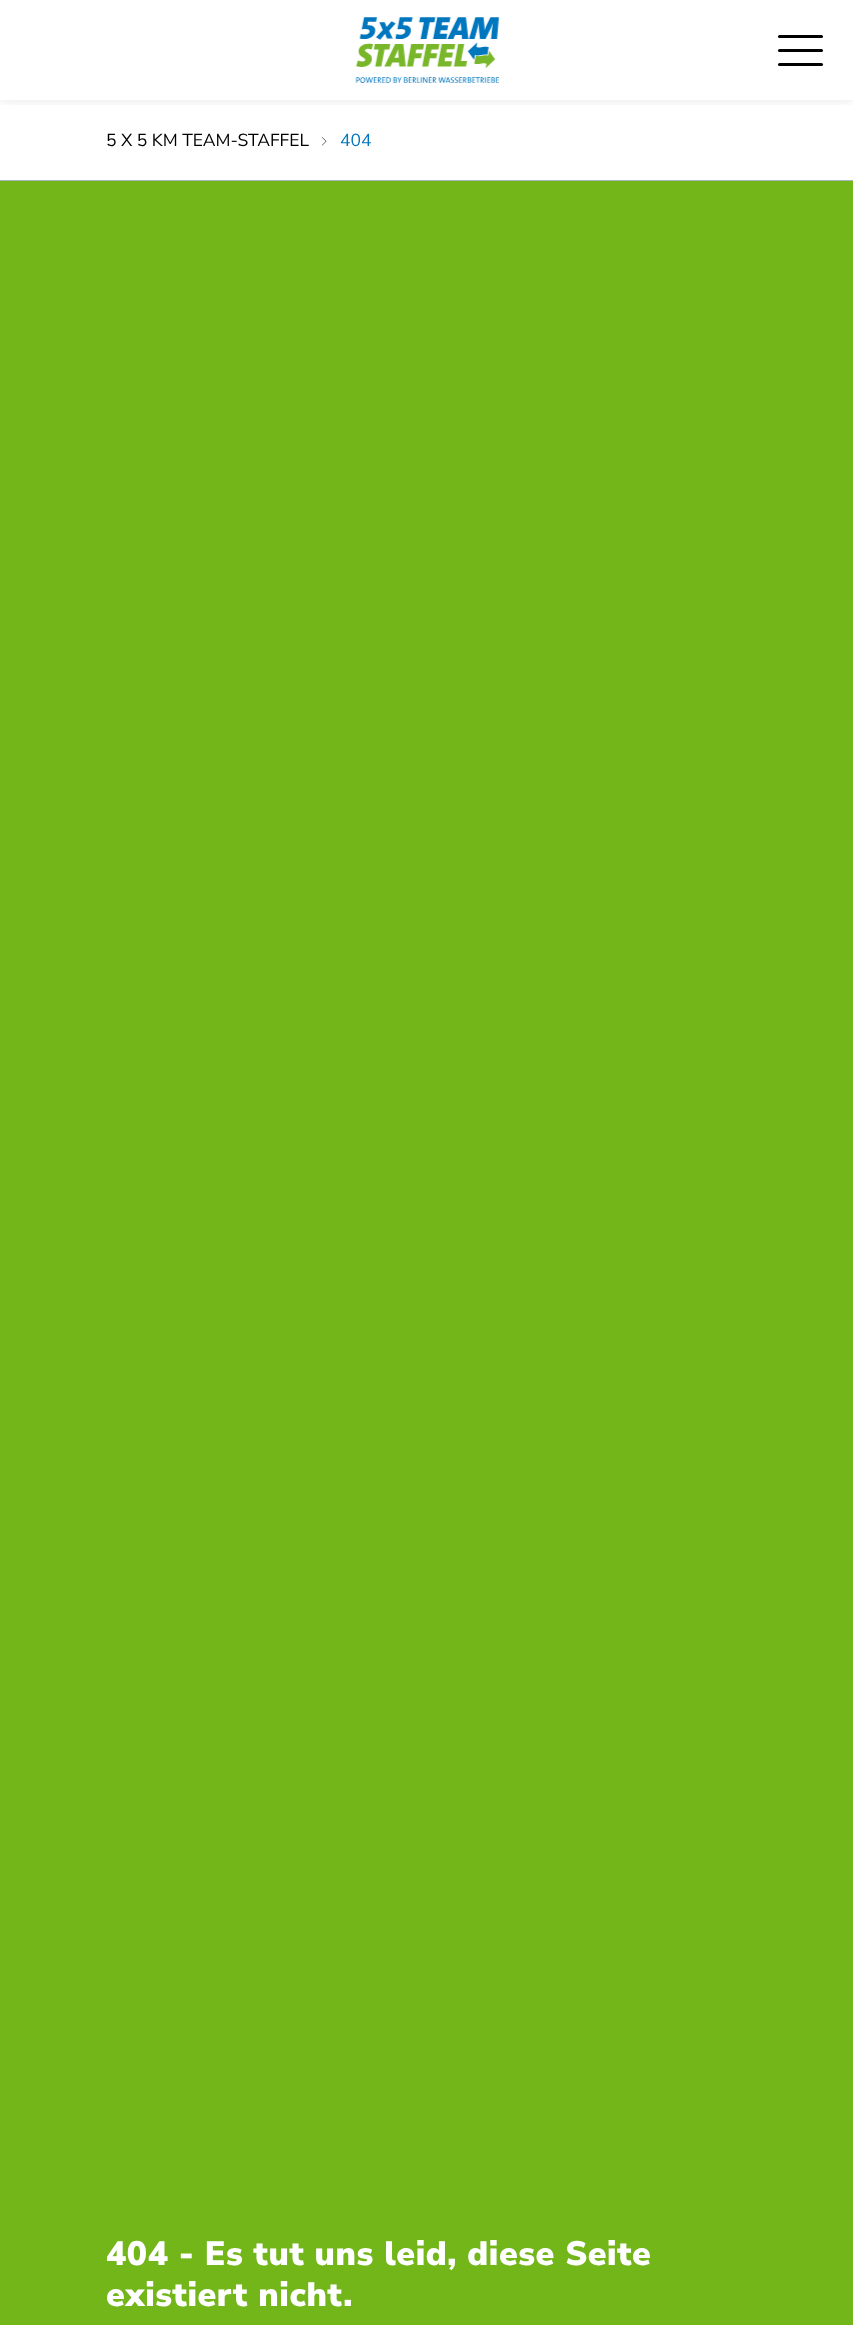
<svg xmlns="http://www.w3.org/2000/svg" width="853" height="2325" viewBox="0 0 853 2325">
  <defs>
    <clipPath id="clip1"><rect x="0" y="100" width="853" height="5"/></clipPath>
  </defs>
  <rect width="100%" height="100%" fill="rgb(255,255,255)"/>
  <g clip-path="url(#clip1)">
    <rect x="0" y="0" width="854" height="100" fill="rgba(0,0,0,0.1)" filter="blur(6px)"/>
  </g>
  <image x="355" y="17" width="145" height="66" href="pic1.png"/>
  <rect x="778" y="35" width="45" height="3" rx="1.5" fill="rgb(0,0,0)"/>
  <rect x="778" y="49" width="45" height="3" rx="1.5" fill="rgb(0,0,0)"/>
  <rect x="778" y="63" width="45" height="3" rx="1.5" fill="rgb(0,0,0)"/>
  <rect x="0" y="180" width="853" height="1" fill="rgb(166,182,191)"/>
  <text x="106" y="146" font-family="Nunito Sans" font-size="17.5" fill="rgb(0,0,0)">5 X 5 KM TEAM-STAFFEL</text>
  <image x="322" y="137" width="5" height="9" href="pic2.png"/>
  <text x="340" y="146" font-family="Nunito Sans" font-size="17.5" fill="rgb(0,118,190)">404</text>
  <rect x="0" y="181" width="853" height="2144" fill="rgb(114,182,26)"/>
  <g font-family="Nunito Sans" font-size="33.75" font-weight="900" letter-spacing="0.6" fill="rgb(255,255,255)">
    <text>
      <tspan x="106" y="2265">404 - Es tut uns leid, diese Seite</tspan>
      <tspan x="106" y="2306">existiert nicht.</tspan>
    </text>
  </g>
</svg>
